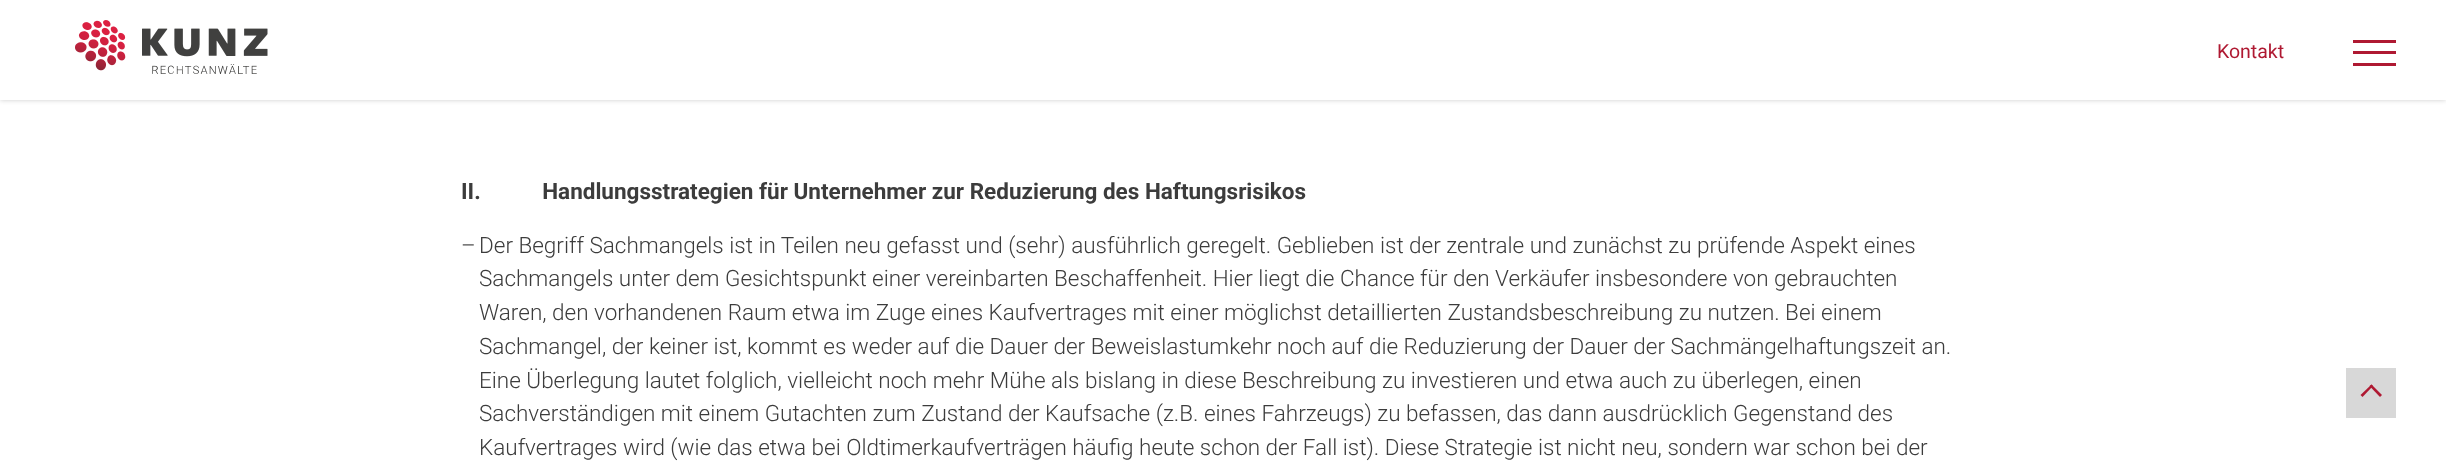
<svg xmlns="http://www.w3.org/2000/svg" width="2446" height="467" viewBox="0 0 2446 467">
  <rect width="100%" height="100%" fill="rgb(255,255,255)"/>
  <rect x="0" y="0" width="2446" height="100" fill="rgba(0,0,0,0.2)" filter="blur(2.5px)"/>
  <rect x="0" y="0" width="2446" height="100" fill="rgb(255,255,255)"/>
  <image x="75" y="20" width="193" height="54" href="pic1.png"/>
  <text x="2217" y="58" font-family="Roboto" font-size="19.5" fill="rgb(175,25,50)">Kontakt</text>
  <rect x="2353" y="40" width="43" height="3" fill="rgb(175,25,50)"/>
  <rect x="2353" y="51" width="43" height="3" fill="rgb(175,25,50)"/>
  <rect x="2353" y="63" width="43" height="3" fill="rgb(175,25,50)"/>
  <text x="461" y="199" font-family="Roboto" font-size="22.5" font-weight="bold" fill="rgb(60,60,60)" xml:space="preserve">II.           Handlungsstrategien für Unternehmer zur Reduzierung des Haftungsrisikos</text>
  <g font-family="Roboto" font-size="22.5" font-weight="300" fill="rgb(60,60,60)">
    <text x="461" y="253">–</text>
    <text>
      <tspan x="479" y="253">Der Begriff Sachmangels ist in Teilen neu gefasst und (sehr) ausführlich geregelt. Geblieben ist der zentrale und zunächst zu prüfende Aspekt eines</tspan>
      <tspan x="479" y="286">Sachmangels unter dem Gesichtspunkt einer vereinbarten Beschaffenheit. Hier liegt die Chance für den Verkäufer insbesondere von gebrauchten</tspan>
      <tspan x="479" y="320">Waren, den vorhandenen Raum etwa im Zuge eines Kaufvertrages mit einer möglichst detaillierten Zustandsbeschreibung zu nutzen. Bei einem</tspan>
      <tspan x="479" y="354">Sachmangel, der keiner ist, kommt es weder auf die Dauer der Beweislastumkehr noch auf die Reduzierung der Dauer der Sachmängelhaftungszeit an.</tspan>
      <tspan x="479" y="388">Eine Überlegung lautet folglich, vielleicht noch mehr Mühe als bislang in diese Beschreibung zu investieren und etwa auch zu überlegen, einen</tspan>
      <tspan x="479" y="421">Sachverständigen mit einem Gutachten zum Zustand der Kaufsache (z.B. eines Fahrzeugs) zu befassen, das dann ausdrücklich Gegenstand des</tspan>
      <tspan x="479" y="455">Kaufvertrages wird (wie das etwa bei Oldtimerkaufverträgen häufig heute schon der Fall ist). Diese Strategie ist nicht neu, sondern war schon bei der</tspan>
    </text>
  </g>
  <rect x="2346" y="368" width="50" height="50" fill="rgb(216,216,216)"/>
  <path d="M2360.5 395L2371.5 384.5L2373 386L2362.5 397Z" fill="rgb(175,25,50)"/>
  <path d="M2369.5 386L2371.5 384.5L2382 395L2380 397Z" fill="rgb(175,25,50)"/>
</svg>
